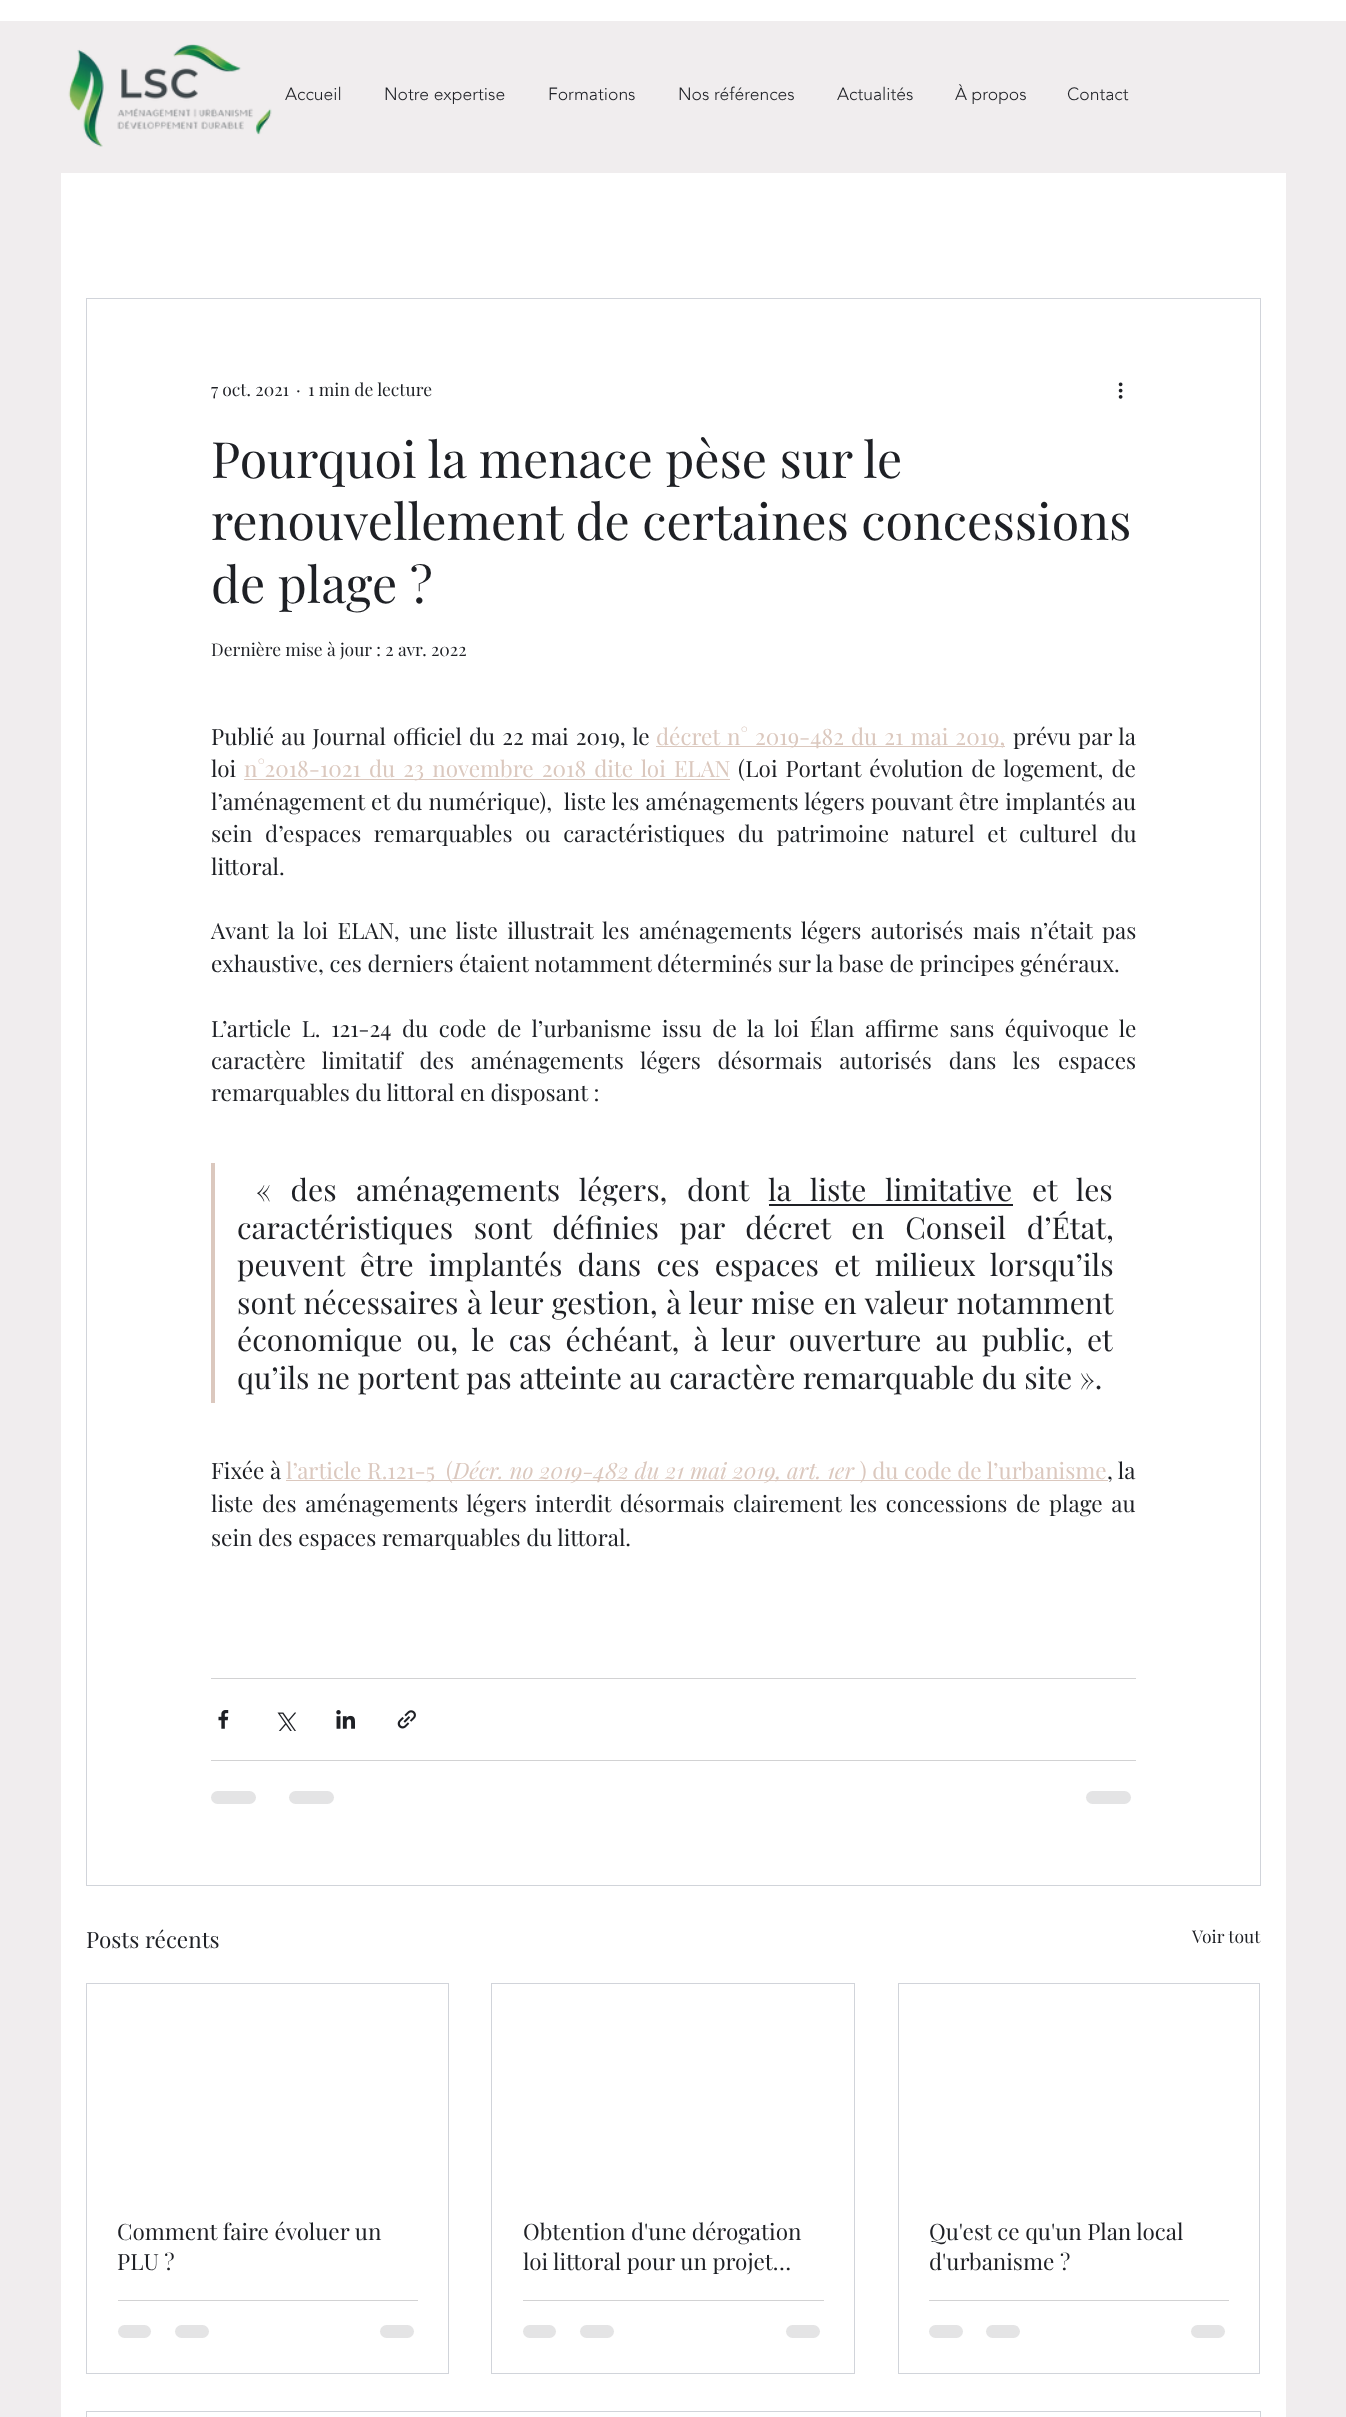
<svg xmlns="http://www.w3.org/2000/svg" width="1346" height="2417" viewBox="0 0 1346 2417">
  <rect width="100%" height="100%" fill="rgb(240,237,238)"/>
  <rect x="0" y="0" width="1346" height="21" fill="rgb(255,255,255)"/>
  <image x="68" y="44" width="204" height="103" href="pic1.png"/>
  <g font-family="'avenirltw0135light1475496'" font-size="17.5" font-weight="300" fill="rgb(30,32,37)">
    <text x="285" y="100">Accueil</text>
    <text x="384" y="100">Notre expertise</text>
    <text x="548" y="100">Formations</text>
    <text x="678" y="100">Nos références</text>
    <text x="837" y="100">Actualités</text>
    <text x="955" y="100">À propos</text>
    <text x="1067" y="100">Contact</text>
  </g>
  <rect x="61" y="173" width="1225" height="2244" fill="rgb(255,255,255)"/>
  <rect x="86.5" y="298.5" width="1174" height="1587" fill="none" stroke="rgb(209,212,218)"/>
  <g font-family="Playfair Display" font-size="17.5" fill="rgb(30,32,37)">
    <text x="211" y="396">7 oct. 2021</text>
    <text x="296" y="396">·</text>
    <text x="308" y="396">1 min de lecture</text>
  </g>
  <image x="1118" y="382" width="5" height="17" href="pic2.png"/>
  <g font-family="Playfair Display" font-size="50" fill="rgb(30,32,37)">
    <text>
      <tspan x="211" y="478">Pourquoi la menace pèse sur le</tspan>
      <tspan x="211" y="540">renouvellement de certaines concessions</tspan>
      <tspan x="211" y="603">de plage ?</tspan>
    </text>
  </g>
  <text x="211" y="656" font-family="Playfair Display" font-size="17.5" fill="rgb(30,32,37)">Dernière mise à jour : 2 avr. 2022</text>
  <text x="211" y="745" word-spacing="1.5" font-family="Playfair Display" font-size="22.5" fill="rgb(30,32,37)">Publié au Journal officiel du 22 mai 2019, le</text>
  <rect x="656" y="746" width="349" height="1" fill="rgb(219,200,190)"/>
  <text x="656" y="745" word-spacing="1.5" font-family="Playfair Display" font-size="22.5" fill="rgb(219,200,190)">décret n° 2019-482 du 21 mai 2019,</text>
  <g font-family="Playfair Display" font-size="22.5" fill="rgb(30,32,37)">
    <text x="1013" y="745" word-spacing="1.5">prévu par la</text>
    <text x="211" y="777">loi</text>
  </g>
  <rect x="244" y="779" width="486" height="1" fill="rgb(219,200,190)"/>
  <text x="244" y="777" word-spacing="2.5" font-family="Playfair Display" font-size="22.5" fill="rgb(219,200,190)">n°2018-1021 du 23 novembre 2018 dite loi ELAN</text>
  <g font-family="Playfair Display" font-size="22.5" fill="rgb(30,32,37)">
    <text x="738" y="777" word-spacing="2.5">(Loi Portant évolution de logement, de</text>
    <text xml:space="preserve"><tspan x="211" y="810" word-spacing="0.6">l’aménagement et du numérique),  liste les aménagements légers pouvant être implantés au</tspan><tspan x="211" y="842" word-spacing="7">sein d’espaces remarquables ou caractéristiques du patrimoine naturel et culturel du</tspan><tspan x="211" y="875">littoral.</tspan></text>
    <text>
      <tspan x="211" y="939" word-spacing="3.75">Avant la loi ELAN, une liste illustrait les aménagements légers autorisés mais n’était pas</tspan>
      <tspan x="211" y="972">exhaustive, ces derniers étaient notamment déterminés sur la base de principes généraux.</tspan>
    </text>
    <text x="211" y="1037">L</text>
  </g>
  <rect x="223" y="1032" width="1" height="5" fill="rgb(255,255,255)"/>
  <g font-family="Playfair Display" font-size="22.5" fill="rgb(30,32,37)">
    <text x="222" y="1037" word-spacing="5">’article L. 121-24 du code de l’urbanisme issu de la loi Élan affirme sans équivoque le</text>
    <text x="211" y="1069" word-spacing="11.25">caractère limitatif des aménagements légers désormais autorisés dans les</text>
    <text x="1058" y="1069">espaces</text>
    <text x="211" y="1101">remarquables du littoral en disposant :</text>
  </g>
  <rect x="211" y="1163" width="4" height="240" fill="rgb(219,200,190)"/>
  <g font-family="Playfair Display" font-size="30" fill="rgb(30,32,37)">
    <text x="256" y="1201" word-spacing="12">« des aménagements légers, dont</text>
    <text x="768" y="1201" word-spacing="12">la liste limitative</text>
  </g>
  <rect x="769" y="1204" width="244" height="2" fill="rgb(30,32,37)"/>
  <g font-family="Playfair Display" font-size="30" fill="rgb(30,32,37)">
    <text x="1032" y="1201" word-spacing="12">et les</text>
    <text x="237" y="1239" word-spacing="13.25">caractéristiques sont définies par décret en Conseil d’État,</text>
  </g>
  <rect x="448" y="1206" width="165" height="1" fill="rgb(255,255,255)"/>
  <g font-family="Playfair Display" font-size="30" fill="rgb(30,32,37)">
    <text>
      <tspan x="237" y="1276" word-spacing="7.75">peuvent être implantés dans ces espaces et milieux lorsqu’ils</tspan>
      <tspan x="237" y="1314" word-spacing="1.25">sont nécessaires à leur gestion, à leur mise en valeur notamment</tspan>
      <tspan x="237" y="1351" word-spacing="6.5">économique ou, le cas échéant, à leur ouverture au public, et</tspan>
      <tspan x="237" y="1389">qu’ils ne portent pas atteinte au caractère remarquable du site ».</tspan>
    </text>
  </g>
  <text x="211" y="1479" font-family="Playfair Display" font-size="22.5" fill="rgb(30,32,37)">Fixée à</text>
  <rect x="286" y="1480" width="569" height="1" fill="rgb(219,200,190)"/>
  <text x="286" y="1479" font-family="Playfair Display" font-size="22.5" fill="rgb(219,200,190)" xml:space="preserve">l’article R.121-5  (</text>
  <text x="453" y="1479" font-family="Playfair Display" font-size="22.5" font-style="italic" fill="rgb(219,200,190)">Décr. no 2019-482 du 21 mai 2019, art. 1er</text>
  <rect x="855" y="1480" width="253" height="1" fill="rgb(219,200,190)"/>
  <text x="860" y="1479" font-family="Playfair Display" font-size="22.5" fill="rgb(219,200,190)">) du code de l’urbanisme</text>
  <g font-family="Playfair Display" font-size="22.5" fill="rgb(30,32,37)">
    <text x="1107" y="1479">, la</text>
    <text x="211" y="1512" word-spacing="3">liste des aménagements légers</text>
    <text x="535" y="1512" word-spacing="3">interdit désormais clairement les concessions de plage au</text>
    <text x="211" y="1546">sein des espaces remarquables du littoral.</text>
  </g>
  <rect x="211" y="1678" width="925" height="1" fill="rgb(210,210,211)"/>
  <image x="218" y="1710" width="11" height="19" href="pic3.png"/>
  <image x="277" y="1712" width="19" height="19" href="pic4.png"/>
  <image x="336" y="1710" width="19" height="19" href="pic5.png"/>
  <image x="397" y="1710" width="19" height="19" href="pic6.png"/>
  <rect x="211" y="1760" width="925" height="1" fill="rgb(210,210,211)"/>
  <rect x="211" y="1791" width="45" height="13" rx="6.5" fill="rgb(228,228,229)"/>
  <rect x="289" y="1791" width="45" height="13" rx="6.5" fill="rgb(228,228,229)"/>
  <rect x="1086" y="1791" width="45" height="13" rx="6.5" fill="rgb(228,228,229)"/>
  <text x="86" y="1948" font-family="Playfair Display" font-size="22.5" fill="rgb(30,32,37)">Posts récents</text>
  <text x="1192" y="1943" font-family="Playfair Display" font-size="17.5" fill="rgb(30,32,37)">Voir tout</text>
  <rect x="86.5" y="1983.5" width="362" height="390" fill="none" stroke="rgb(209,212,218)"/>
  <g font-family="Playfair Display" font-size="22.5" fill="rgb(30,32,37)">
    <text>
      <tspan x="117" y="2240">Comment faire évoluer un</tspan>
      <tspan x="117" y="2270">PLU ?</tspan>
    </text>
  </g>
  <rect x="118" y="2300" width="300" height="1" fill="rgb(210,210,211)"/>
  <rect x="118" y="2325" width="33" height="13" rx="6.5" fill="rgb(228,228,229)"/>
  <rect x="175" y="2325" width="34" height="13" rx="6.5" fill="rgb(228,228,229)"/>
  <rect x="380" y="2325" width="34" height="13" rx="6.5" fill="rgb(228,228,229)"/>
  <rect x="491.5" y="1983.5" width="363" height="390" fill="none" stroke="rgb(209,212,218)"/>
  <g font-family="Playfair Display" font-size="22.5" fill="rgb(30,32,37)">
    <text>
      <tspan x="523" y="2240">Obtention d'une dérogation</tspan>
      <tspan x="523" y="2270">loi littoral pour un projet…</tspan>
    </text>
  </g>
  <rect x="523" y="2300" width="301" height="1" fill="rgb(210,210,211)"/>
  <rect x="523" y="2325" width="33" height="13" rx="6.5" fill="rgb(228,228,229)"/>
  <rect x="580" y="2325" width="34" height="13" rx="6.5" fill="rgb(228,228,229)"/>
  <rect x="786" y="2325" width="34" height="13" rx="6.5" fill="rgb(228,228,229)"/>
  <rect x="898.5" y="1983.5" width="361" height="390" fill="none" stroke="rgb(209,212,218)"/>
  <g font-family="Playfair Display" font-size="22.5" fill="rgb(30,32,37)">
    <text>
      <tspan x="929" y="2240">Qu'est ce qu'un Plan local</tspan>
      <tspan x="929" y="2270">d'urbanisme ?</tspan>
    </text>
  </g>
  <rect x="929" y="2300" width="300" height="1" fill="rgb(210,210,211)"/>
  <rect x="929" y="2325" width="34" height="13" rx="6.5" fill="rgb(228,228,229)"/>
  <rect x="986" y="2325" width="34" height="13" rx="6.5" fill="rgb(228,228,229)"/>
  <rect x="1191" y="2325" width="34" height="13" rx="6.5" fill="rgb(228,228,229)"/>
  <rect x="86.5" y="2411.5" width="1174" height="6" fill="none" stroke="rgb(209,212,218)"/>
</svg>
